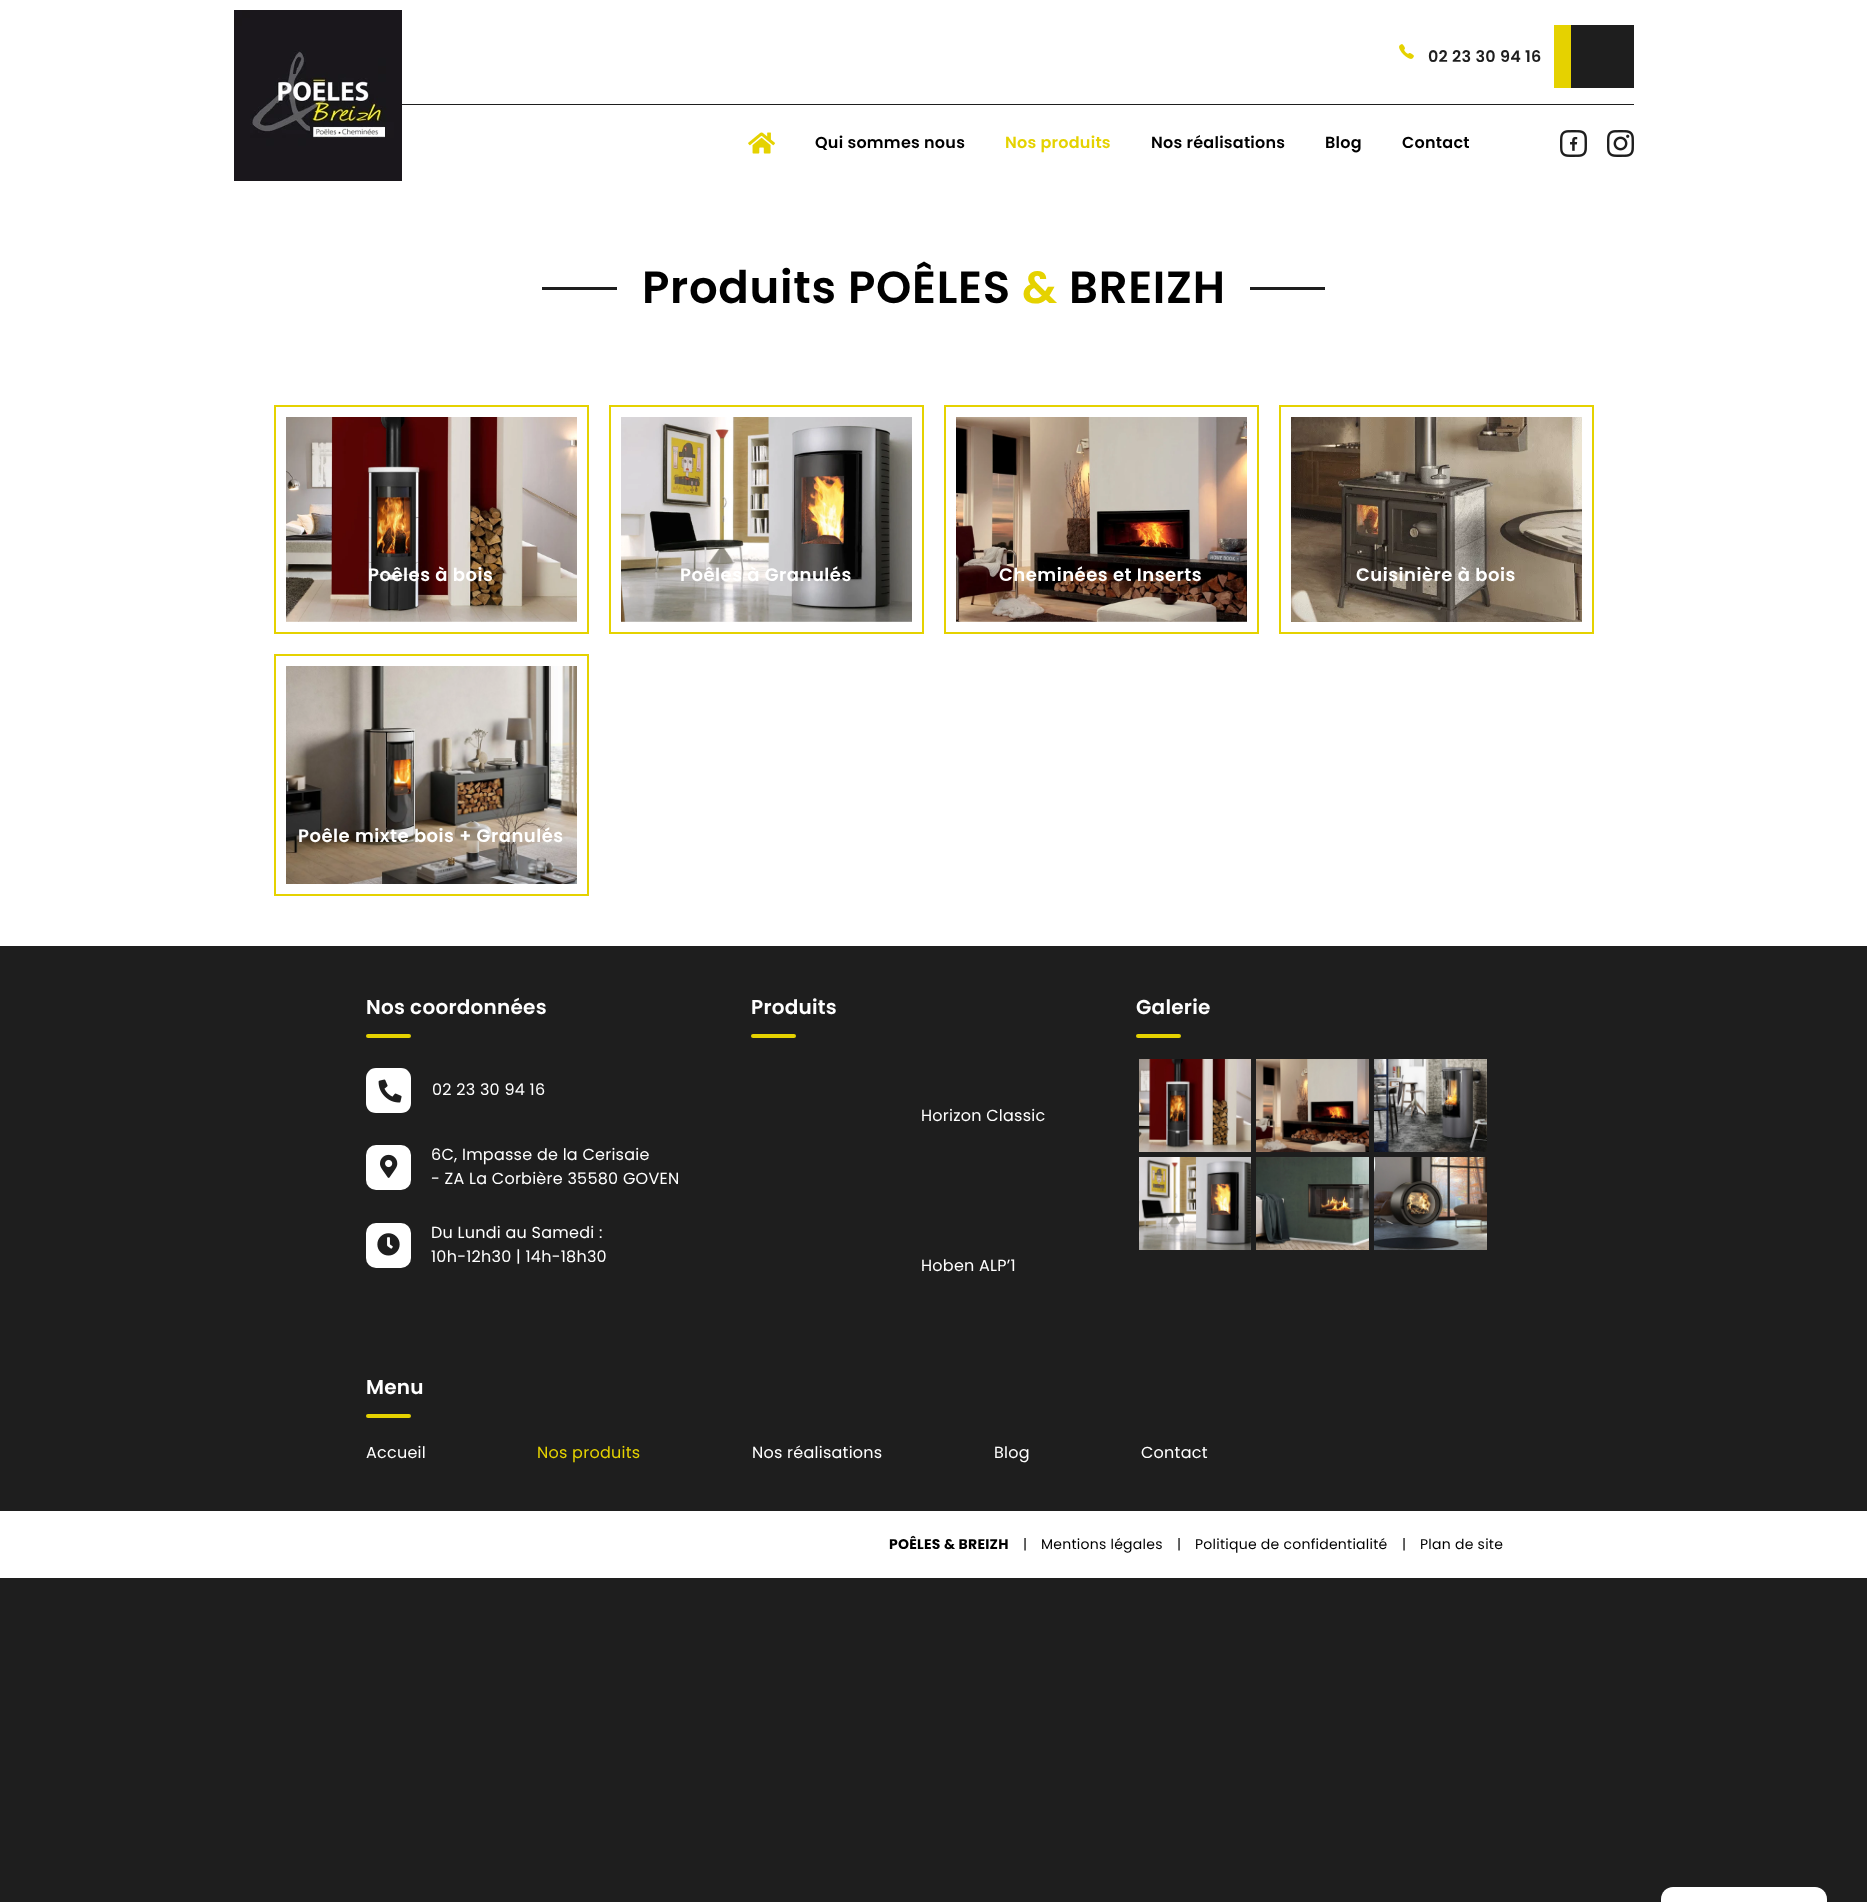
<svg xmlns="http://www.w3.org/2000/svg" width="1867" height="1902" viewBox="0 0 1867 1902">
  <rect width="100%" height="100%" fill="rgb(30,30,30)"/>
  <rect x="0" y="0" width="1867" height="1578" fill="rgb(255,255,255)"/>
  <rect x="402" y="104" width="1232" height="1" fill="rgb(30,30,30)"/>
  <image x="1399" y="44" width="15" height="15" href="pic1.png"/>
  <text x="1428" y="62" font-family="Poppins" font-size="16" font-weight="600" letter-spacing="0.25" fill="rgb(30,30,30)">02 23 30 94 16</text>
  <rect x="1571" y="25" width="63" height="63" fill="rgb(30,30,30)"/>
  <rect x="1554" y="25" width="17" height="63" fill="rgb(229,210,0)"/>
  <image x="234" y="10" width="168" height="171" href="pic2.png"/>
  <image x="748" y="132" width="27" height="22" href="pic3.png"/>
  <text x="815" y="148" font-family="Poppins" font-size="16" font-weight="600" letter-spacing="0.25" fill="rgb(0,0,0)">Qui sommes nous</text>
  <text x="1005" y="148" font-family="Poppins" font-size="16" font-weight="600" letter-spacing="0.25" fill="rgb(229,210,0)">Nos produits</text>
  <g font-family="Poppins" font-size="16" font-weight="600" letter-spacing="0.25" fill="rgb(0,0,0)">
    <text x="1151" y="148">Nos réalisations</text>
    <text x="1325" y="148">Blog</text>
    <text x="1402" y="148">Contact</text>
  </g>
  <image x="1560" y="130" width="27" height="27" href="pic4.png"/>
  <image x="1607" y="130" width="27" height="27" href="pic5.png"/>
  <rect x="542" y="287" width="75" height="3" fill="rgb(30,30,30)"/>
  <text x="642" y="303" font-family="Poppins" font-size="45" font-weight="600" letter-spacing="0.7" fill="rgb(0,0,0)">Produits POÊLES</text>
  <text x="1022" y="303" font-family="Poppins" font-size="45" font-weight="600" letter-spacing="0.7" fill="rgb(229,210,0)">&amp;</text>
  <text x="1069" y="303" font-family="Poppins" font-size="45" font-weight="600" letter-spacing="0.7" fill="rgb(0,0,0)">BREIZH</text>
  <rect x="1250" y="287" width="75" height="3" fill="rgb(30,30,30)"/>
  <rect x="275" y="406" width="313" height="227" fill="none" stroke="rgb(229,210,0)" stroke-width="2"/>
  <image x="286" y="417" width="291" height="205" href="pic6.png"/>
  <text x="368" y="581" font-family="Poppins" font-size="18" font-weight="600" letter-spacing="0.5" fill="rgb(255,255,255)">Poêles à bois</text>
  <rect x="610" y="406" width="313" height="227" fill="none" stroke="rgb(229,210,0)" stroke-width="2"/>
  <image x="621" y="417" width="291" height="205" href="pic7.png"/>
  <text x="680" y="581" font-family="Poppins" font-size="18" font-weight="600" letter-spacing="0.5" fill="rgb(255,255,255)">Poêles à Granulés</text>
  <rect x="945" y="406" width="313" height="227" fill="none" stroke="rgb(229,210,0)" stroke-width="2"/>
  <image x="956" y="417" width="291" height="205" href="pic8.png"/>
  <text x="999" y="581" font-family="Poppins" font-size="18" font-weight="600" letter-spacing="0.5" fill="rgb(255,255,255)">Cheminées et Inserts</text>
  <rect x="1280" y="406" width="313" height="227" fill="none" stroke="rgb(229,210,0)" stroke-width="2"/>
  <image x="1291" y="417" width="291" height="205" href="pic9.png"/>
  <text x="1356" y="581" font-family="Poppins" font-size="18" font-weight="600" letter-spacing="0.5" fill="rgb(255,255,255)">Cuisinière à bois</text>
  <rect x="275" y="655" width="313" height="240" fill="none" stroke="rgb(229,210,0)" stroke-width="2"/>
  <image x="286" y="666" width="291" height="218" href="pic10.png"/>
  <text x="298" y="842" font-family="Poppins" font-size="18" font-weight="600" letter-spacing="0.5" fill="rgb(255,255,255)">Poêle mixte bois + Granulés</text>
  <rect x="0" y="946" width="1867" height="565" fill="rgb(30,30,30)"/>
  <text x="366" y="1014" font-family="Poppins" font-size="20" font-weight="600" letter-spacing="0.25" fill="rgb(255,255,255)">Nos coordonnées</text>
  <rect x="366" y="1034" width="45" height="4" rx="2" fill="rgb(229,210,0)"/>
  <path d="M411 1078V1103C411 1109 407 1113 401 1113H376C370 1113 366 1109 366 1103V1078C366 1073 370 1068 376 1068H401C407 1068 411 1073 411 1078Z" fill="rgb(255,255,255)"/>
  <image x="378" y="1079" width="24" height="24" href="pic11.png"/>
  <text x="432" y="1095" font-family="Poppins" font-size="16" letter-spacing="0.25" fill="rgb(255,255,255)">02 23 30 94 16</text>
  <rect x="366" y="1145" width="45" height="45" rx="10" fill="rgb(255,255,255)"/>
  <image x="380" y="1154" width="18" height="24" href="pic12.png"/>
  <g font-family="Poppins" font-size="16" letter-spacing="0.25" fill="rgb(255,255,255)">
    <text>
      <tspan x="431" y="1160">6C, Impasse de la Cerisaie</tspan>
      <tspan x="431" y="1184">- ZA La Corbière 35580 GOVEN</tspan>
    </text>
  </g>
  <rect x="366" y="1223" width="45" height="45" rx="10" fill="rgb(255,255,255)"/>
  <image x="377" y="1233" width="23" height="23" href="pic13.png"/>
  <g font-family="Poppins" font-size="16" letter-spacing="0.25" fill="rgb(255,255,255)">
    <text>
      <tspan x="431" y="1238">Du Lundi au Samedi :</tspan>
      <tspan x="431" y="1262">10h-12h30 | 14h-18h30</tspan>
    </text>
  </g>
  <text x="751" y="1014" font-family="Poppins" font-size="20" font-weight="600" letter-spacing="0.25" fill="rgb(255,255,255)">Produits</text>
  <rect x="751" y="1034" width="45" height="4" rx="2" fill="rgb(229,210,0)"/>
  <g font-family="Poppins" font-size="16" letter-spacing="0.25" fill="rgb(255,255,255)">
    <text x="921" y="1121">Horizon Classic</text>
    <text x="921" y="1271">Hoben ALP’1</text>
  </g>
  <text x="1136" y="1014" font-family="Poppins" font-size="20" font-weight="600" letter-spacing="0.25" fill="rgb(255,255,255)">Galerie</text>
  <rect x="1136" y="1034" width="45" height="4" rx="2" fill="rgb(229,210,0)"/>
  <image x="1139" y="1059" width="112" height="93" href="pic14.png"/>
  <image x="1256" y="1059" width="113" height="93" href="pic15.png"/>
  <image x="1374" y="1059" width="113" height="93" href="pic16.png"/>
  <image x="1139" y="1157" width="112" height="93" href="pic17.png"/>
  <image x="1256" y="1157" width="113" height="93" href="pic18.png"/>
  <image x="1374" y="1157" width="113" height="93" href="pic19.png"/>
  <text x="366" y="1394" font-family="Poppins" font-size="20" font-weight="600" letter-spacing="0.25" fill="rgb(255,255,255)">Menu</text>
  <rect x="366" y="1414" width="45" height="4" rx="2" fill="rgb(229,210,0)"/>
  <text x="366" y="1458" font-family="Poppins" font-size="16" letter-spacing="0.25" fill="rgb(255,255,255)">Accueil</text>
  <text x="537" y="1458" font-family="Poppins" font-size="16" letter-spacing="0.25" fill="rgb(229,210,0)">Nos produits</text>
  <g font-family="Poppins" font-size="16" letter-spacing="0.25" fill="rgb(255,255,255)">
    <text x="752" y="1458">Nos réalisations</text>
    <text x="994" y="1458">Blog</text>
    <text x="1141" y="1458">Contact</text>
  </g>
  <text x="889" y="1549" font-family="Poppins" font-size="14" font-weight="bold" letter-spacing="0.25" fill="rgb(0,0,0)">POÊLES &amp; BREIZH</text>
  <g font-family="Poppins" font-size="14" letter-spacing="0.25" fill="rgb(0,0,0)">
    <text x="1023" y="1549">|</text>
    <text x="1041" y="1549">Mentions légales</text>
    <text x="1177" y="1549">|</text>
    <text x="1195" y="1549">Politique de confidentialité</text>
    <text x="1402" y="1549">|</text>
    <text x="1420" y="1549">Plan de site</text>
  </g>
  <path d="M1673 1887H1815C1821.5 1887 1827 1892.5 1827 1899V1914H1661V1899C1661 1892.5 1666.5 1887 1673 1887Z" fill="rgb(255,255,255)"/>
</svg>
